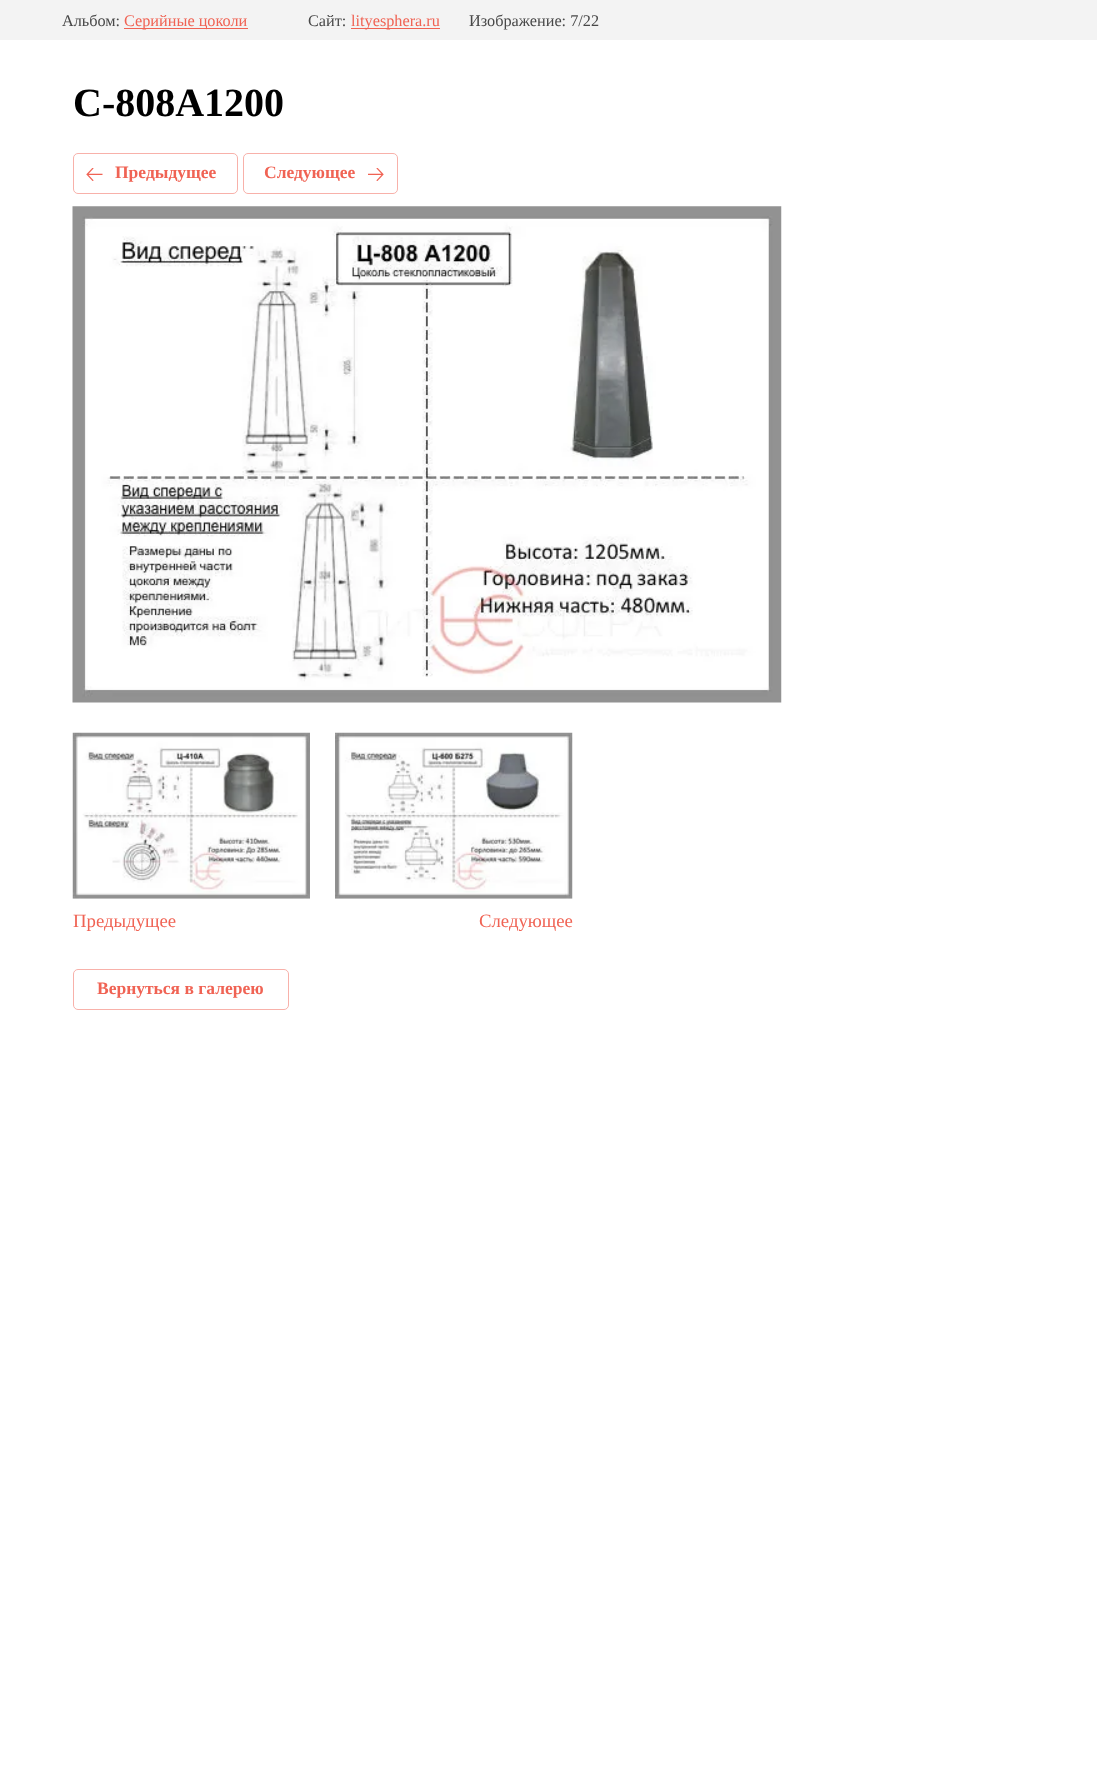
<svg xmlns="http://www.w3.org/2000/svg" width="1097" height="1788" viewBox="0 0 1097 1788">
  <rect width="100%" height="100%" fill="rgb(255,255,255)"/>
  <rect x="0" y="0" width="1097" height="40" fill="rgb(243,243,243)"/>
  <text x="62" y="26" font-family="Liberation Serif" font-size="16.25" fill="rgb(72,72,72)">Альбом:</text>
  <rect x="124" y="28" width="124" height="1" fill="rgb(240,99,84)"/>
  <text x="124" y="26" font-family="Liberation Serif" font-size="16.25" fill="rgb(240,99,84)">Серийные цоколи</text>
  <text x="308" y="26" font-family="Liberation Serif" font-size="16.25" fill="rgb(72,72,72)">Сайт:</text>
  <rect x="351" y="28" width="89" height="1" fill="rgb(240,99,84)"/>
  <text x="351" y="26" font-family="Liberation Serif" font-size="16.25" fill="rgb(240,99,84)">lityesphera.ru</text>
  <text x="469" y="26" font-family="Liberation Serif" font-size="16.25" fill="rgb(72,72,72)">Изображение: 7/22</text>
  <text x="73" y="116" font-family="Liberation Serif" font-size="40" font-weight="bold" fill="rgb(0,0,0)">C-808A1200</text>
  <rect x="73.5" y="153.5" width="164" height="40" rx="4.5" fill="none" stroke="rgb(248,177,170)"/>
  <image x="86" y="168" width="17" height="13" href="pic1.png"/>
  <text x="115" y="178" font-family="Liberation Serif" font-size="17.5" font-weight="bold" fill="rgb(240,99,84)">Предыдущее</text>
  <rect x="243.5" y="153.5" width="154" height="40" rx="4.5" fill="none" stroke="rgb(248,177,170)"/>
  <text x="264" y="178" font-family="Liberation Serif" font-size="17.5" font-weight="bold" fill="rgb(240,99,84)">Следующее</text>
  <image x="368" y="168" width="16" height="13" href="pic2.png"/>
  <image x="72" y="206" width="710" height="497" href="pic3.png"/>
  <image x="72" y="732" width="238" height="167" href="pic4.png"/>
  <text x="73" y="927" font-family="Liberation Serif" font-size="18.75" fill="rgb(240,99,84)">Предыдущее</text>
  <image x="335" y="732" width="238" height="167" href="pic5.png"/>
  <text x="479" y="927" font-family="Liberation Serif" font-size="18.75" fill="rgb(240,99,84)">Следующее</text>
  <rect x="73.5" y="969.5" width="215" height="40" rx="4.5" fill="none" stroke="rgb(248,177,170)"/>
  <text x="97" y="994" font-family="Liberation Serif" font-size="17.5" font-weight="bold" fill="rgb(240,99,84)">Вернуться в галерею</text>
</svg>
